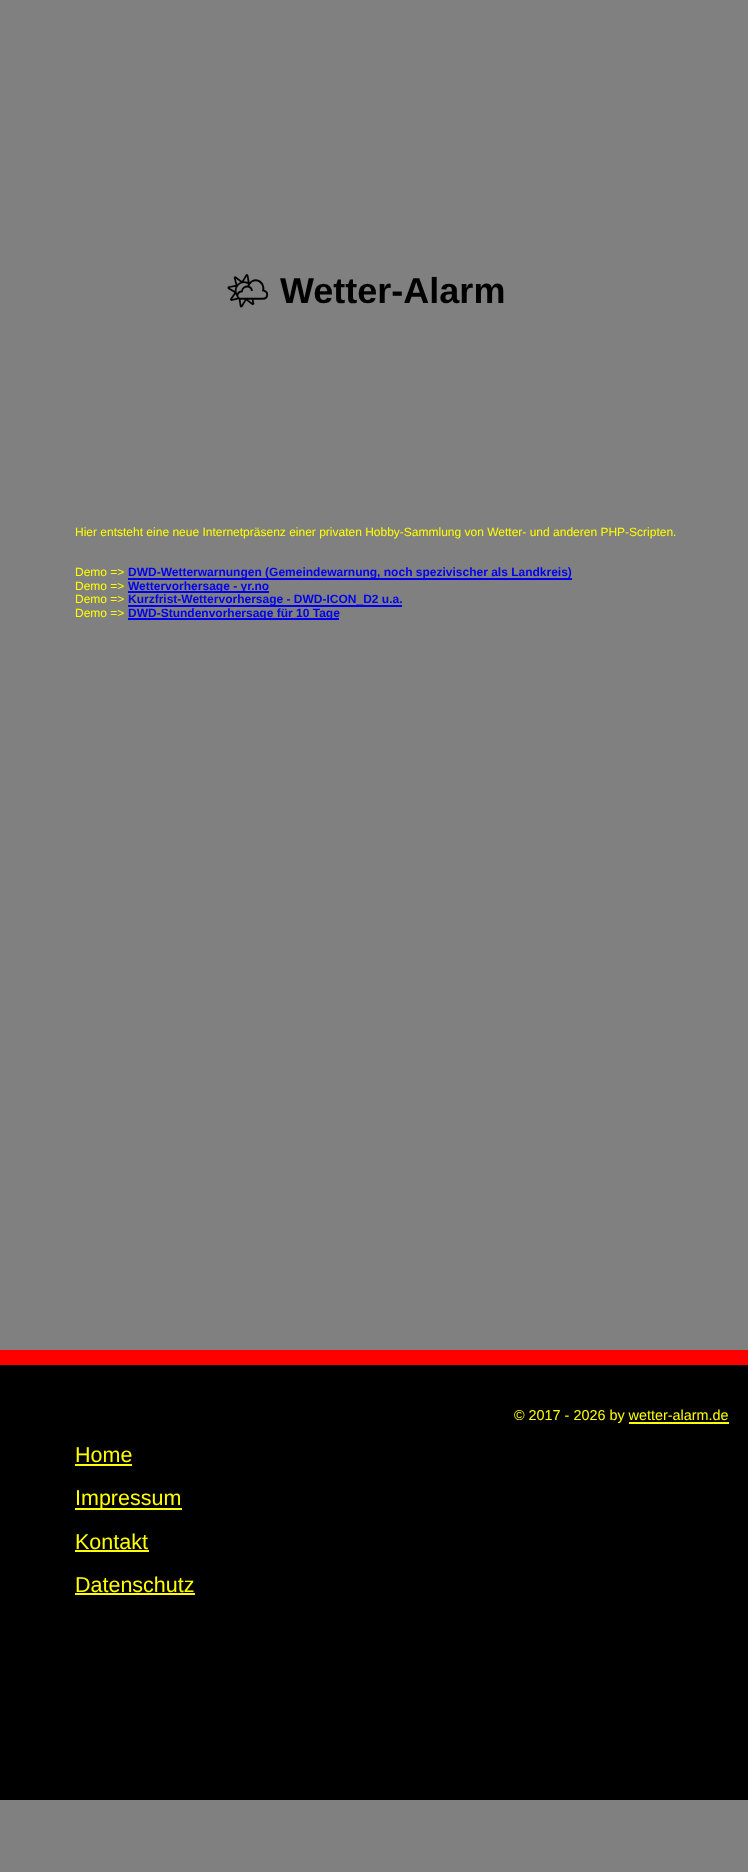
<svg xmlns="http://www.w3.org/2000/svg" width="748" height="1872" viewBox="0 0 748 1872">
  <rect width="100%" height="100%" fill="rgb(128,128,128)"/>
  <text x="225" y="303" font-family="Noto Emoji" font-size="36" font-weight="bold" fill="rgb(0,0,0)">🌤</text>
  <text x="280" y="303" font-family="Liberation Sans" font-size="36" font-weight="bold" fill="rgb(0,0,0)">Wetter-Alarm</text>
  <g font-family="Liberation Sans" font-size="12" fill="rgb(255,255,0)">
    <text x="75" y="536">Hier entsteht eine neue Internetpräsenz einer privaten Hobby-Sammlung von Wetter- und anderen PHP-Scripten.</text>
    <text x="75" y="576">Demo =&gt;</text>
  </g>
  <rect x="128" y="578" width="444" height="2" fill="rgb(0,0,238)"/>
  <text x="128" y="576" font-family="Liberation Sans" font-size="12" font-weight="bold" fill="rgb(0,0,238)">DWD-Wetterwarnungen (Gemeindewarnung, noch spezivischer als Landkreis)</text>
  <text x="75" y="590" font-family="Liberation Sans" font-size="12" fill="rgb(255,255,0)">Demo =&gt;</text>
  <rect x="128" y="591" width="141" height="2" fill="rgb(0,0,238)"/>
  <text x="128" y="590" font-family="Liberation Sans" font-size="12" font-weight="bold" fill="rgb(0,0,238)">Wettervorhersage - yr.no</text>
  <text x="75" y="603" font-family="Liberation Sans" font-size="12" fill="rgb(255,255,0)">Demo =&gt;</text>
  <rect x="128" y="605" width="274" height="2" fill="rgb(0,0,238)"/>
  <text x="128" y="603" font-family="Liberation Sans" font-size="12" font-weight="bold" fill="rgb(0,0,238)">Kurzfrist-Wettervorhersage - DWD-ICON_D2 u.a.</text>
  <text x="75" y="617" font-family="Liberation Sans" font-size="12" fill="rgb(255,255,0)">Demo =&gt;</text>
  <rect x="128" y="618" width="211" height="2" fill="rgb(0,0,238)"/>
  <text x="128" y="617" font-family="Liberation Sans" font-size="12" font-weight="bold" fill="rgb(0,0,238)">DWD-Stundenvorhersage für 10 Tage</text>
  <rect x="0" y="1365" width="748" height="435" fill="rgb(0,0,0)"/>
  <rect x="0" y="1350" width="748" height="15" fill="rgb(255,0,0)"/>
  <text x="514" y="1420" font-family="Liberation Sans" font-size="14.4" fill="rgb(255,255,0)">© 2017 - 2026 by wetter-alarm.de</text>
  <rect x="629" y="1422" width="100" height="2" fill="rgb(255,255,0)"/>
  <text x="75" y="1462" font-family="Liberation Sans" font-size="21.5" fill="rgb(255,255,0)">Home</text>
  <rect x="75" y="1464" width="57" height="2" fill="rgb(255,255,0)"/>
  <rect x="75" y="1508" width="107" height="2" fill="rgb(255,255,0)"/>
  <g font-family="Liberation Sans" font-size="21.5" fill="rgb(255,255,0)">
    <text x="75" y="1505">Impressum</text>
    <text x="75" y="1549">Kontakt</text>
  </g>
  <rect x="75" y="1550" width="74" height="2" fill="rgb(255,255,0)"/>
  <text x="75" y="1592" font-family="Liberation Sans" font-size="21.5" fill="rgb(255,255,0)">Datenschutz</text>
  <rect x="75" y="1593" width="120" height="2" fill="rgb(255,255,0)"/>
</svg>
